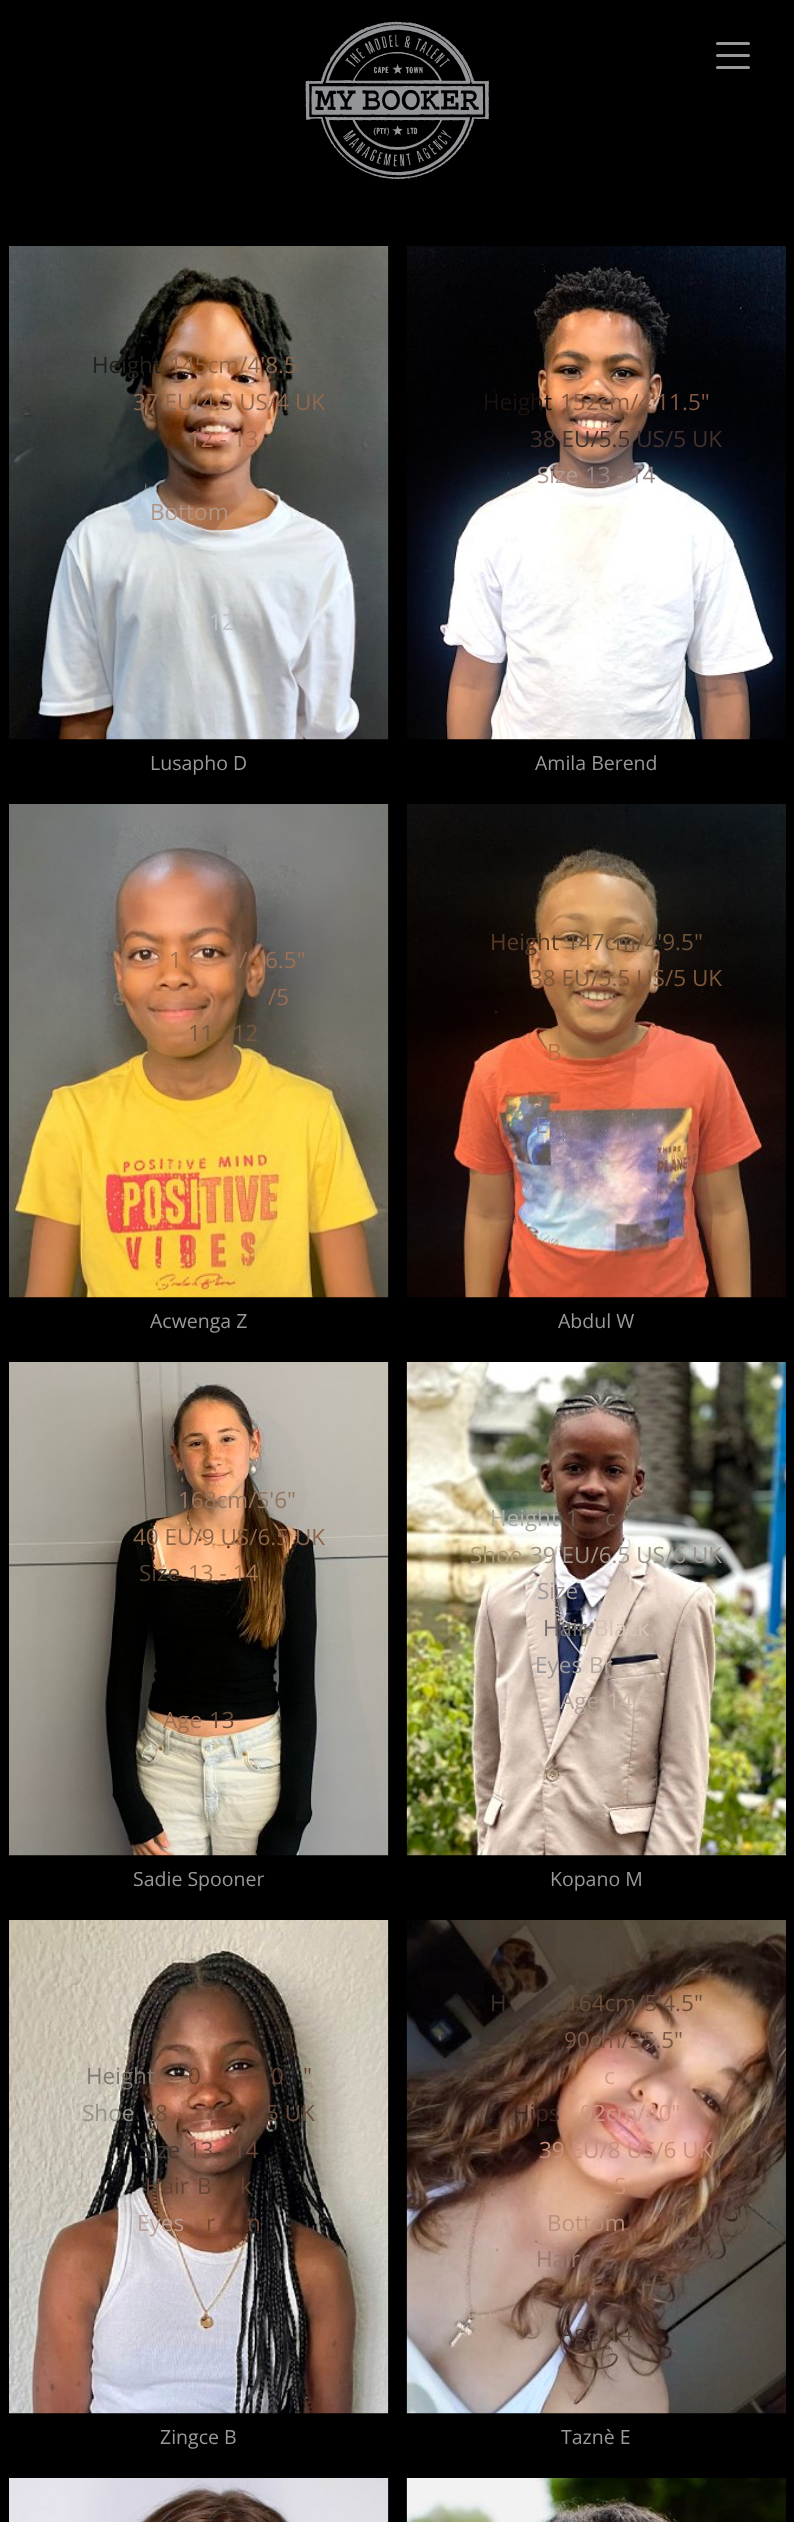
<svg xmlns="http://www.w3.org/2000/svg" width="794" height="2522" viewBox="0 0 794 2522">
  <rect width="100%" height="100%" fill="rgb(0,0,0)"/>
  <image x="305" y="21" width="184" height="158" href="pic1.png"/>
  <rect x="716" y="42" width="34" height="3" rx="1.5" fill="rgb(153,153,153)"/>
  <rect x="716" y="54" width="34" height="3" rx="1.5" fill="rgb(153,153,153)"/>
  <rect x="716" y="66" width="34" height="3" rx="1.5" fill="rgb(153,153,153)"/>
  <image x="9" y="246" width="380" height="494" href="pic2.png"/>
  <text x="92" y="373" font-family="Open Sans" font-size="22.5" fill="rgb(33,33,29)">Height</text>
  <text x="169" y="373" font-family="Open Sans" font-size="22.5" fill="rgb(142,101,72)">145cm/4'8.5</text>
  <text x="133" y="410" font-family="Open Sans" font-size="22.5" fill="rgb(144,104,79)">37 EU/4.5 US/4 UK</text>
  <text x="188" y="447" font-family="Open Sans" font-size="22.5" fill="rgb(169,107,81)">12 - 13</text>
  <text x="150" y="520" font-family="Open Sans" font-size="22.5" fill="rgb(177,148,131)">Bottom</text>
  <text x="209" y="630" font-family="Open Sans" font-size="22.5" fill="rgb(191,196,200)">12</text>
  <text x="150" y="770" font-family="Open Sans" font-size="19.5" fill="rgb(153,153,153)">Lusapho D</text>
  <image x="407" y="246" width="379" height="494" href="pic3.png"/>
  <text x="483" y="410" font-family="Open Sans" font-size="22.5" fill="rgb(27,18,14)">Height</text>
  <text x="560" y="410" font-family="Open Sans" font-size="22.5" fill="rgb(132,88,66)">152cm/4'11.5"</text>
  <text x="530" y="447" font-family="Open Sans" font-size="22.5" fill="rgb(67,49,45)">38 EU/5.5 US/5 UK</text>
  <text x="537" y="483" font-family="Open Sans" font-size="22.5" fill="rgb(176,155,148)">Size</text>
  <text x="585" y="483" font-family="Open Sans" font-size="22.5" fill="rgb(148,135,134)">13 - 14</text>
  <text x="535" y="770" font-family="Open Sans" font-size="19.5" fill="rgb(153,153,153)">Amila Berend</text>
  <image x="9" y="804" width="380" height="494" href="pic4.png"/>
  <g font-family="Open Sans" font-size="22.5" fill="rgb(157,112,85)">
    <text x="169" y="968">1</text>
    <text x="239" y="968">/</text>
    <text x="265" y="968">6.5"</text>
  </g>
  <text x="112" y="1005" font-family="Open Sans" font-size="22.5" fill="rgb(118,113,105)">e</text>
  <text x="268" y="1005" font-family="Open Sans" font-size="22.5" fill="rgb(151,109,82)">/5</text>
  <text x="188" y="1041" font-family="Open Sans" font-size="22.5" fill="rgb(118,89,62)">11 - 12</text>
  <text x="150" y="1328" font-family="Open Sans" font-size="19.5" fill="rgb(153,153,153)">Acwenga Z</text>
  <image x="407" y="804" width="379" height="494" href="pic5.png"/>
  <text x="490" y="950" font-family="Open Sans" font-size="22.5" fill="rgb(87,58,36)">Height</text>
  <text x="566" y="950" font-family="Open Sans" font-size="22.5" fill="rgb(112,84,58)">147cm/4'9.5"</text>
  <text x="530" y="986" font-family="Open Sans" font-size="22.5" fill="rgb(126,87,57)">38 EU/5.5 US/5 UK</text>
  <text x="547" y="1060" font-family="Open Sans" font-size="22.5" fill="rgb(182,110,68)">B</text>
  <text x="535" y="1133" font-family="Open Sans" font-size="22.5" fill="rgb(139,133,153)">E</text>
  <text x="558" y="1328" font-family="Open Sans" font-size="19.5" fill="rgb(153,153,153)">Abdul W</text>
  <image x="9" y="1362" width="380" height="494" href="pic6.png"/>
  <text x="178" y="1508" font-family="Open Sans" font-size="22.5" fill="rgb(149,117,94)">168cm/5'6"</text>
  <text x="133" y="1545" font-family="Open Sans" font-size="22.5" fill="rgb(142,101,72)">40 EU/9 US/6.5 UK</text>
  <text x="139" y="1581" font-family="Open Sans" font-size="22.5" fill="rgb(80,63,47)">Size</text>
  <text x="188" y="1581" font-family="Open Sans" font-size="22.5" fill="rgb(170,119,80)">13 - 14</text>
  <text x="163" y="1728" font-family="Open Sans" font-size="22.5" fill="rgb(157,112,85)">Age</text>
  <text x="209" y="1728" font-family="Open Sans" font-size="22.5" fill="rgb(106,78,59)">13</text>
  <text x="133" y="1886" font-family="Open Sans" font-size="19.5" fill="rgb(153,153,153)">Sadie Spooner</text>
  <image x="406" y="1362" width="380" height="494" href="pic7.png"/>
  <text x="490" y="1526" font-family="Open Sans" font-size="22.5" fill="rgb(170,173,161)">Height</text>
  <g font-family="Open Sans" font-size="22.5" fill="rgb(105,89,79)">
    <text x="566" y="1526">1</text>
    <text x="605" y="1526">c</text>
  </g>
  <text x="470" y="1563" font-family="Open Sans" font-size="22.5" fill="rgb(174,157,118)">Shoe</text>
  <text x="530" y="1563" font-family="Open Sans" font-size="22.5" fill="rgb(158,147,137)">39 EU/6.5 US/6 UK</text>
  <text x="537" y="1599" font-family="Open Sans" font-size="22.5" fill="rgb(160,153,156)">Size</text>
  <text x="543" y="1636" font-family="Open Sans" font-size="22.5" fill="rgb(116,110,113)">Hair</text>
  <text x="594" y="1636" font-family="Open Sans" font-size="22.5" fill="rgb(214,196,184)">Black</text>
  <text x="535" y="1673" font-family="Open Sans" font-size="22.5" fill="rgb(153,153,153)">Eyes</text>
  <text x="589" y="1673" font-family="Open Sans" font-size="22.5" fill="rgb(184,170,159)">Br</text>
  <text x="560" y="1709" font-family="Open Sans" font-size="22.5" fill="rgb(177,162,155)">Age</text>
  <text x="607" y="1709" font-family="Open Sans" font-size="22.5" fill="rgb(201,182,168)">14</text>
  <text x="550" y="1886" font-family="Open Sans" font-size="19.5" fill="rgb(153,153,153)">Kopano M</text>
  <image x="9" y="1920" width="380" height="494" href="pic8.png"/>
  <text x="86" y="2084" font-family="Open Sans" font-size="22.5" fill="rgb(127,120,111)">Height</text>
  <g font-family="Open Sans" font-size="22.5" fill="rgb(101,67,51)">
    <text x="188" y="2084">0</text>
    <text x="271" y="2084">0</text>
    <text x="303" y="2084">"</text>
  </g>
  <text x="82" y="2121" font-family="Open Sans" font-size="22.5" fill="rgb(148,145,135)">Shoe</text>
  <g font-family="Open Sans" font-size="22.5" fill="rgb(106,78,59)">
    <text x="155" y="2121">8</text>
    <text x="266" y="2121">5 UK</text>
  </g>
  <text x="139" y="2158" font-family="Open Sans" font-size="22.5" fill="rgb(68,58,53)">Size</text>
  <text x="188" y="2158" font-family="Open Sans" font-size="22.5" fill="rgb(112,72,60)">13 - 14</text>
  <g font-family="Open Sans" font-size="22.5" fill="rgb(101,67,51)">
    <text x="145" y="2194">Hair</text>
    <text x="197" y="2194">B</text>
    <text x="240" y="2194">k</text>
  </g>
  <text x="137" y="2231" font-family="Open Sans" font-size="22.5" fill="rgb(184,158,148)">Eyes</text>
  <g font-family="Open Sans" font-size="22.5" fill="rgb(117,71,51)">
    <text x="206" y="2231">r</text>
    <text x="247" y="2231">n</text>
  </g>
  <text x="160" y="2444" font-family="Open Sans" font-size="19.5" fill="rgb(153,153,153)">Zingce B</text>
  <image x="406" y="1920" width="380" height="494" href="pic9.png"/>
  <text x="490" y="2011" font-family="Open Sans" font-size="22.5" fill="rgb(59,49,43)">H</text>
  <text x="566" y="2011" font-family="Open Sans" font-size="22.5" fill="rgb(106,78,59)">164cm/5'4.5"</text>
  <text x="564" y="2048" font-family="Open Sans" font-size="22.5" fill="rgb(124,86,70)">90cm/35.5"</text>
  <text x="604" y="2084" font-family="Open Sans" font-size="22.5" fill="rgb(210,157,135)">c</text>
  <text x="513" y="2121" font-family="Open Sans" font-size="22.5" fill="rgb(65,38,30)">Hips</text>
  <text x="580" y="2121" font-family="Open Sans" font-size="22.5" fill="rgb(211,148,130)">02cm/40"</text>
  <text x="539" y="2158" font-family="Open Sans" font-size="22.5" fill="rgb(201,143,125)">39 EU/8 US/6 UK</text>
  <text x="614" y="2194" font-family="Open Sans" font-size="22.5" fill="rgb(207,147,120)">S</text>
  <text x="547" y="2231" font-family="Open Sans" font-size="22.5" fill="rgb(188,143,121)">Bottom</text>
  <text x="536" y="2267" font-family="Open Sans" font-size="22.5" fill="rgb(158,120,109)">Hair</text>
  <text x="560" y="2341" font-family="Open Sans" font-size="22.5" fill="rgb(75,56,55)">Age</text>
  <text x="607" y="2341" font-family="Open Sans" font-size="22.5" fill="rgb(98,76,65)">14</text>
  <text x="561" y="2444" font-family="Open Sans" font-size="19.5" fill="rgb(153,153,153)">Taznè E</text>
  <image x="9" y="2478" width="380" height="44" href="pic10.png"/>
  <image x="406" y="2478" width="380" height="44" href="pic11.png"/>
</svg>
